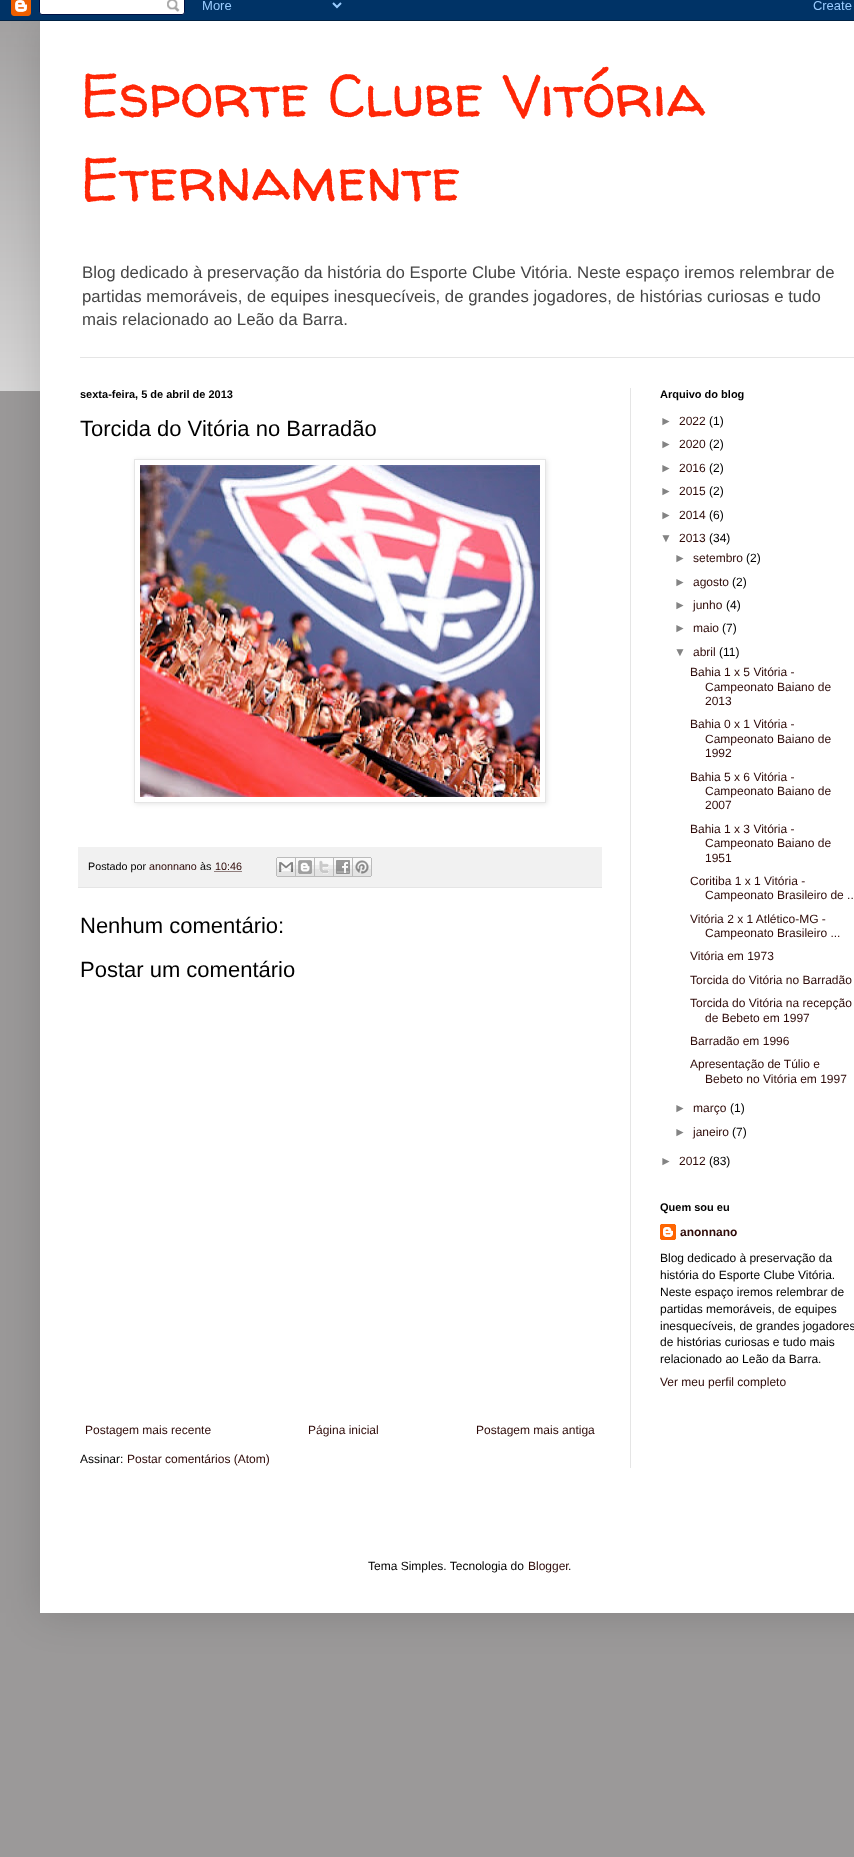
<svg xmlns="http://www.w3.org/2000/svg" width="854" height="1857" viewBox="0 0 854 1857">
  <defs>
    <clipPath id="clip1"><path d="M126 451H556V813H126ZM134 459H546V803H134Z" clip-rule="evenodd"/></clipPath>
  </defs>
  <rect width="100%" height="100%" fill="rgb(155,153,153)"/>
  <image x="0" y="21" width="40" height="370" href="pic2.png"/>
  <rect x="40" y="21" width="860" height="1592" fill="rgba(0,0,0,0.15)" filter="blur(20px)"/>
  <image x="0" y="0" width="854" height="21" href="pic1.png"/>
  <rect x="40" y="21" width="814" height="1592" fill="rgb(255,255,255)"/>
  <g font-family="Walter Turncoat" font-size="60" fill="rgb(255,39,7)">
    <text>
      <tspan x="80" y="117">Esporte Clube Vitória</tspan>
      <tspan x="80" y="201">Eternamente</tspan>
    </text>
  </g>
  <g font-family="Liberation Sans" font-size="16.8" fill="rgb(70,70,70)">
    <text>
      <tspan x="82" y="278">Blog dedicado à preservação da história do Esporte Clube Vitória. Neste espaço iremos relembrar de</tspan>
      <tspan x="82" y="302">partidas memoráveis, de equipes inesquecíveis, de grandes jogadores, de histórias curiosas e tudo</tspan>
      <tspan x="82" y="325">mais relacionado ao Leão da Barra.</tspan>
    </text>
  </g>
  <rect x="80" y="357" width="774" height="1" fill="rgb(229,229,229)"/>
  <rect x="630" y="388" width="1" height="1080" fill="rgb(229,229,229)"/>
  <text x="80" y="398" font-family="Liberation Sans" font-size="11" font-weight="bold" fill="rgb(0,0,0)">sexta-feira, 5 de abril de 2013</text>
  <text x="80" y="436" font-family="Liberation Sans" font-size="22" fill="rgb(0,0,0)">Torcida do Vitória no Barradão</text>
  <g clip-path="url(#clip1)">
    <rect x="135" y="460" width="412" height="344" fill="rgba(0,0,0,0.1)" filter="blur(2.5px)"/>
  </g>
  <rect x="134.5" y="459.5" width="411" height="343" fill="none" stroke="rgb(229,229,229)"/>
  <image x="140" y="465" width="400" height="332" href="pic3.png"/>
  <rect x="78" y="847" width="524" height="40" fill="rgb(241,241,241)"/>
  <rect x="78" y="887" width="524" height="1" fill="rgb(229,229,229)"/>
  <text x="88" y="870" font-family="Liberation Sans" font-size="10.75" fill="rgb(0,0,0)">Postado por</text>
  <text x="149" y="870" font-family="Liberation Sans" font-size="10.75" fill="rgb(46,10,8)">anonnano</text>
  <text x="200" y="870" font-family="Liberation Sans" font-size="10.75" fill="rgb(0,0,0)">às</text>
  <text x="215" y="870" font-family="Liberation Sans" font-size="10.75" fill="rgb(46,10,8)">10:46</text>
  <path d="M214.5 871.5H241.5" fill="none" stroke="rgb(46,10,8)" stroke-dasharray="1 1"/>
  <image x="276" y="857" width="20" height="20" href="pic4.png"/>
  <image x="296" y="857" width="19" height="20" href="pic5.png"/>
  <image x="315" y="857" width="19" height="20" href="pic6.png"/>
  <image x="334" y="857" width="19" height="20" href="pic7.png"/>
  <image x="353" y="857" width="19" height="20" href="pic8.png"/>
  <g font-family="Liberation Sans" font-size="22" fill="rgb(0,0,0)">
    <text x="80" y="933">Nenhum comentário:</text>
    <text x="80" y="977">Postar um comentário</text>
  </g>
  <g font-family="Liberation Sans" font-size="12" fill="rgb(46,10,8)">
    <text x="85" y="1434">Postagem mais recente</text>
    <text x="308" y="1434">Página inicial</text>
    <text x="476" y="1434">Postagem mais antiga</text>
  </g>
  <text x="80" y="1463" font-family="Liberation Sans" font-size="12" fill="rgb(0,0,0)">Assinar:</text>
  <text x="127" y="1463" font-family="Liberation Sans" font-size="12" fill="rgb(46,10,8)">Postar comentários (Atom)</text>
  <text x="660" y="398" font-family="Liberation Sans" font-size="11" font-weight="bold" fill="rgb(0,0,0)">Arquivo do blog</text>
  <text x="660" y="425" font-family="Liberation Sans" font-size="12" fill="rgb(131,131,131)">►</text>
  <text x="679" y="425" font-family="Liberation Sans" font-size="12" fill="rgb(46,10,8)">2022</text>
  <text x="709" y="425" font-family="Liberation Sans" font-size="12" fill="rgb(0,0,0)">(1)</text>
  <text x="660" y="448" font-family="Liberation Sans" font-size="12" fill="rgb(131,131,131)">►</text>
  <text x="679" y="448" font-family="Liberation Sans" font-size="12" fill="rgb(46,10,8)">2020</text>
  <text x="709" y="448" font-family="Liberation Sans" font-size="12" fill="rgb(0,0,0)">(2)</text>
  <text x="660" y="472" font-family="Liberation Sans" font-size="12" fill="rgb(131,131,131)">►</text>
  <text x="679" y="472" font-family="Liberation Sans" font-size="12" fill="rgb(46,10,8)">2016</text>
  <text x="709" y="472" font-family="Liberation Sans" font-size="12" fill="rgb(0,0,0)">(2)</text>
  <text x="660" y="495" font-family="Liberation Sans" font-size="12" fill="rgb(131,131,131)">►</text>
  <text x="679" y="495" font-family="Liberation Sans" font-size="12" fill="rgb(46,10,8)">2015</text>
  <text x="709" y="495" font-family="Liberation Sans" font-size="12" fill="rgb(0,0,0)">(2)</text>
  <text x="660" y="519" font-family="Liberation Sans" font-size="12" fill="rgb(131,131,131)">►</text>
  <text x="679" y="519" font-family="Liberation Sans" font-size="12" fill="rgb(46,10,8)">2014</text>
  <text x="709" y="519" font-family="Liberation Sans" font-size="12" fill="rgb(0,0,0)">(6)</text>
  <text x="660" y="542" font-family="Liberation Sans" font-size="12" fill="rgb(131,131,131)">▼</text>
  <text x="679" y="542" font-family="Liberation Sans" font-size="12" fill="rgb(46,10,8)">2013</text>
  <text x="709" y="542" font-family="Liberation Sans" font-size="12" fill="rgb(0,0,0)">(34)</text>
  <text x="674" y="562" font-family="Liberation Sans" font-size="12" fill="rgb(131,131,131)">►</text>
  <text x="693" y="562" font-family="Liberation Sans" font-size="12" fill="rgb(46,10,8)">setembro</text>
  <text x="746" y="562" font-family="Liberation Sans" font-size="12" fill="rgb(0,0,0)">(2)</text>
  <text x="674" y="586" font-family="Liberation Sans" font-size="12" fill="rgb(131,131,131)">►</text>
  <text x="693" y="586" font-family="Liberation Sans" font-size="12" fill="rgb(46,10,8)">agosto</text>
  <text x="732" y="586" font-family="Liberation Sans" font-size="12" fill="rgb(0,0,0)">(2)</text>
  <text x="674" y="609" font-family="Liberation Sans" font-size="12" fill="rgb(131,131,131)">►</text>
  <text x="693" y="609" font-family="Liberation Sans" font-size="12" fill="rgb(46,10,8)">junho</text>
  <text x="726" y="609" font-family="Liberation Sans" font-size="12" fill="rgb(0,0,0)">(4)</text>
  <text x="674" y="632" font-family="Liberation Sans" font-size="12" fill="rgb(131,131,131)">►</text>
  <text x="693" y="632" font-family="Liberation Sans" font-size="12" fill="rgb(46,10,8)">maio</text>
  <text x="722" y="632" font-family="Liberation Sans" font-size="12" fill="rgb(0,0,0)">(7)</text>
  <text x="674" y="656" font-family="Liberation Sans" font-size="12" fill="rgb(131,131,131)">▼</text>
  <text x="693" y="656" font-family="Liberation Sans" font-size="12" fill="rgb(46,10,8)">abril</text>
  <text x="719" y="656" font-family="Liberation Sans" font-size="12" fill="rgb(0,0,0)">(11)</text>
  <g font-family="Liberation Sans" font-size="12" fill="rgb(46,10,8)">
    <text x="690" y="676">Bahia 1 x 5 Vitória -</text>
    <text>
      <tspan x="705" y="691">Campeonato Baiano de</tspan>
      <tspan x="705" y="705">2013</tspan>
    </text>
    <text x="690" y="728">Bahia 0 x 1 Vitória -</text>
    <text>
      <tspan x="705" y="743">Campeonato Baiano de</tspan>
      <tspan x="705" y="757">1992</tspan>
    </text>
    <text x="690" y="781">Bahia 5 x 6 Vitória -</text>
    <text>
      <tspan x="705" y="795">Campeonato Baiano de</tspan>
      <tspan x="705" y="809">2007</tspan>
    </text>
    <text x="690" y="833">Bahia 1 x 3 Vitória -</text>
    <text>
      <tspan x="705" y="847">Campeonato Baiano de</tspan>
      <tspan x="705" y="862">1951</tspan>
    </text>
    <text x="690" y="885">Coritiba 1 x 1 Vitória -</text>
    <text x="705" y="899">Campeonato Brasileiro de ..</text>
    <text x="690" y="923">Vitória 2 x 1 Atlético-MG -</text>
    <text x="705" y="937">Campeonato Brasileiro ...</text>
    <text x="690" y="960">Vitória em 1973</text>
    <text>
      <tspan x="690" y="984">Torcida do Vitória no Barradão</tspan>
      <tspan x="690" y="1007">Torcida do Vitória na recepção</tspan>
    </text>
    <text x="705" y="1022">de Bebeto em 1997</text>
    <text>
      <tspan x="690" y="1045">Barradão em 1996</tspan>
      <tspan x="690" y="1068">Apresentação de Túlio e</tspan>
    </text>
    <text x="705" y="1083">Bebeto no Vitória em 1997</text>
  </g>
  <text x="674" y="1112" font-family="Liberation Sans" font-size="12" fill="rgb(131,131,131)">►</text>
  <text x="693" y="1112" font-family="Liberation Sans" font-size="12" fill="rgb(46,10,8)">março</text>
  <text x="730" y="1112" font-family="Liberation Sans" font-size="12" fill="rgb(0,0,0)">(1)</text>
  <text x="674" y="1136" font-family="Liberation Sans" font-size="12" fill="rgb(131,131,131)">►</text>
  <text x="693" y="1136" font-family="Liberation Sans" font-size="12" fill="rgb(46,10,8)">janeiro</text>
  <text x="732" y="1136" font-family="Liberation Sans" font-size="12" fill="rgb(0,0,0)">(7)</text>
  <text x="660" y="1165" font-family="Liberation Sans" font-size="12" fill="rgb(131,131,131)">►</text>
  <text x="679" y="1165" font-family="Liberation Sans" font-size="12" fill="rgb(46,10,8)">2012</text>
  <text x="709" y="1165" font-family="Liberation Sans" font-size="12" fill="rgb(0,0,0)">(83)</text>
  <text x="660" y="1211" font-family="Liberation Sans" font-size="11" font-weight="bold" fill="rgb(0,0,0)">Quem sou eu</text>
  <image x="660" y="1224" width="16" height="16" href="pic9.png"/>
  <text x="680" y="1236" font-family="Liberation Sans" font-size="12" font-weight="bold" fill="rgb(46,10,8)">anonnano</text>
  <g font-family="Liberation Sans" font-size="12" fill="rgb(0,0,0)">
    <text>
      <tspan x="660" y="1262">Blog dedicado à preservação da</tspan>
      <tspan x="660" y="1279">história do Esporte Clube Vitória.</tspan>
      <tspan x="660" y="1296">Neste espaço iremos relembrar de</tspan>
      <tspan x="660" y="1313">partidas memoráveis, de equipes</tspan>
      <tspan x="660" y="1330">inesquecíveis, de grandes jogadores</tspan>
      <tspan x="660" y="1346">de histórias curiosas e tudo mais</tspan>
      <tspan x="660" y="1363">relacionado ao Leão da Barra.</tspan>
    </text>
  </g>
  <text x="660" y="1386" font-family="Liberation Sans" font-size="12" fill="rgb(46,10,8)">Ver meu perfil completo</text>
  <text x="368" y="1570" font-family="Liberation Sans" font-size="12" fill="rgb(0,0,0)">Tema Simples. Tecnologia do</text>
  <text x="528" y="1570" font-family="Liberation Sans" font-size="12" fill="rgb(46,10,8)">Blogger</text>
  <text x="568" y="1570" font-family="Liberation Sans" font-size="12" fill="rgb(0,0,0)">.</text>
</svg>
